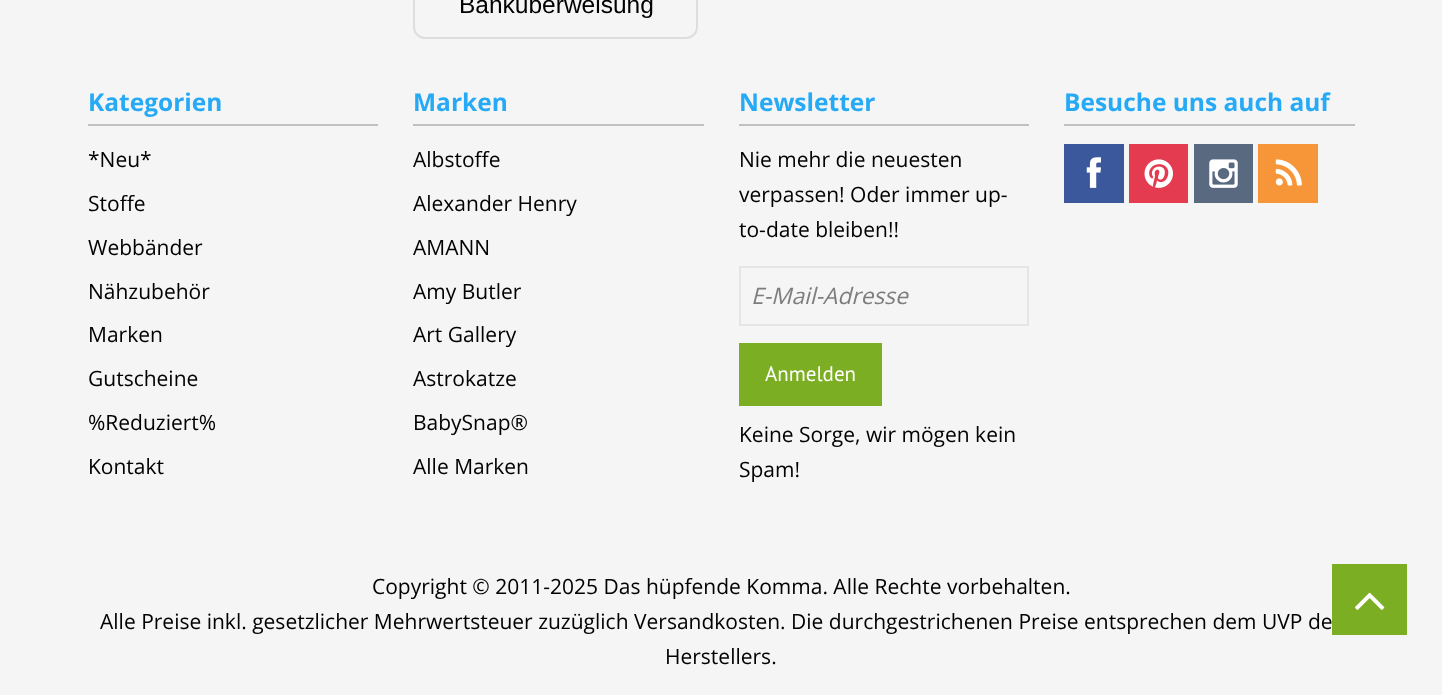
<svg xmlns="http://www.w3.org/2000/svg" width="1442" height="695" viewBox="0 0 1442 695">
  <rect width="100%" height="100%" fill="rgb(245,245,245)"/>
  <rect x="414" y="-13" width="283" height="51" rx="11" fill="none" stroke="rgb(221,221,221)" stroke-width="2"/>
  <text x="459" y="13" font-family="Liberation Sans" font-size="24.5" fill="rgb(0,0,0)">Banküberweisung</text>
  <rect x="88" y="124" width="290" height="2" fill="rgb(192,192,192)"/>
  <text x="88" y="111" font-family="Open Sans" font-size="24.5" font-weight="bold" fill="rgb(39,170,245)">Kategorien</text>
  <g font-family="Open Sans" font-size="21" fill="rgb(0,0,0)">
    <text x="88" y="167">*Neu*</text>
    <text x="88" y="211">Stoffe</text>
    <text x="88" y="255">Webbänder</text>
    <text x="88" y="299">Nähzubehör</text>
    <text x="88" y="342">Marken</text>
    <text x="88" y="386">Gutscheine</text>
    <text x="88" y="430">%Reduziert%</text>
    <text x="88" y="474">Kontakt</text>
  </g>
  <rect x="413" y="124" width="291" height="2" fill="rgb(192,192,192)"/>
  <text x="413" y="111" font-family="Open Sans" font-size="24.5" font-weight="bold" fill="rgb(39,170,245)">Marken</text>
  <g font-family="Open Sans" font-size="21" fill="rgb(0,0,0)">
    <text x="413" y="167">Albstoffe</text>
    <text x="413" y="211">Alexander Henry</text>
    <text x="413" y="255">AMANN</text>
    <text x="413" y="299">Amy Butler</text>
    <text x="413" y="342">Art Gallery</text>
    <text x="413" y="386">Astrokatze</text>
    <text x="413" y="430">BabySnap®</text>
    <text x="413" y="474">Alle Marken</text>
  </g>
  <rect x="739" y="124" width="290" height="2" fill="rgb(192,192,192)"/>
  <text x="739" y="111" font-family="Open Sans" font-size="24.5" font-weight="bold" fill="rgb(39,170,245)">Newsletter</text>
  <g font-family="Open Sans" font-size="21" fill="rgb(0,0,0)">
    <text>
      <tspan x="739" y="167">Nie mehr die neuesten</tspan>
      <tspan x="739" y="202">verpassen! Oder immer up-</tspan>
      <tspan x="739" y="237">to-date bleiben!!</tspan>
    </text>
  </g>
  <rect x="740" y="267" width="288" height="58" fill="none" stroke="rgb(229,229,229)" stroke-width="2"/>
  <text x="751" y="304" font-family="Open Sans" font-size="22.75" font-style="italic" fill="rgb(125,125,125)">E-Mail-Adresse</text>
  <rect x="739" y="343" width="143" height="63" fill="rgb(123,174,35)"/>
  <text x="765" y="381" font-family="PT Sans" font-size="21" fill="rgb(255,255,255)">Anmelden</text>
  <g font-family="Open Sans" font-size="21" fill="rgb(0,0,0)">
    <text>
      <tspan x="739" y="442">Keine Sorge, wir mögen kein</tspan>
      <tspan x="739" y="477">Spam!</tspan>
    </text>
  </g>
  <rect x="1064" y="124" width="291" height="2" fill="rgb(192,192,192)"/>
  <text x="1064" y="111" font-family="Open Sans" font-size="24.5" font-weight="bold" fill="rgb(39,170,245)">Besuche uns auch auf</text>
  <rect x="1064" y="144" width="60" height="59" fill="rgb(58,88,155)"/>
  <image x="1086" y="157" width="15" height="31" href="pic1.png"/>
  <rect x="1129" y="144" width="59" height="59" fill="rgb(229,59,81)"/>
  <image x="1144" y="159" width="29" height="29" href="pic2.png"/>
  <rect x="1194" y="144" width="59" height="59" fill="rgb(88,105,128)"/>
  <image x="1209" y="159" width="29" height="29" href="pic3.png"/>
  <rect x="1258" y="144" width="60" height="59" fill="rgb(247,150,56)"/>
  <image x="1275" y="159" width="27" height="27" href="pic4.png"/>
  <g font-family="Open Sans" font-size="21" fill="rgb(0,0,0)">
    <text x="372" y="594">Copyright © 2011-2025 Das hüpfende Komma. Alle Rechte vorbehalten.</text>
    <text x="100" y="629">Alle Preise inkl. gesetzlicher Mehrwertsteuer zuzüglich Versandkosten. Die durchgestrichenen Preise entsprechen dem UVP de</text>
    <text x="665" y="664">Herstellers.</text>
  </g>
  <rect x="1332" y="564" width="75" height="71" fill="rgb(123,174,35)"/>
  <image x="1355" y="592" width="30" height="18" href="pic5.png"/>
</svg>
